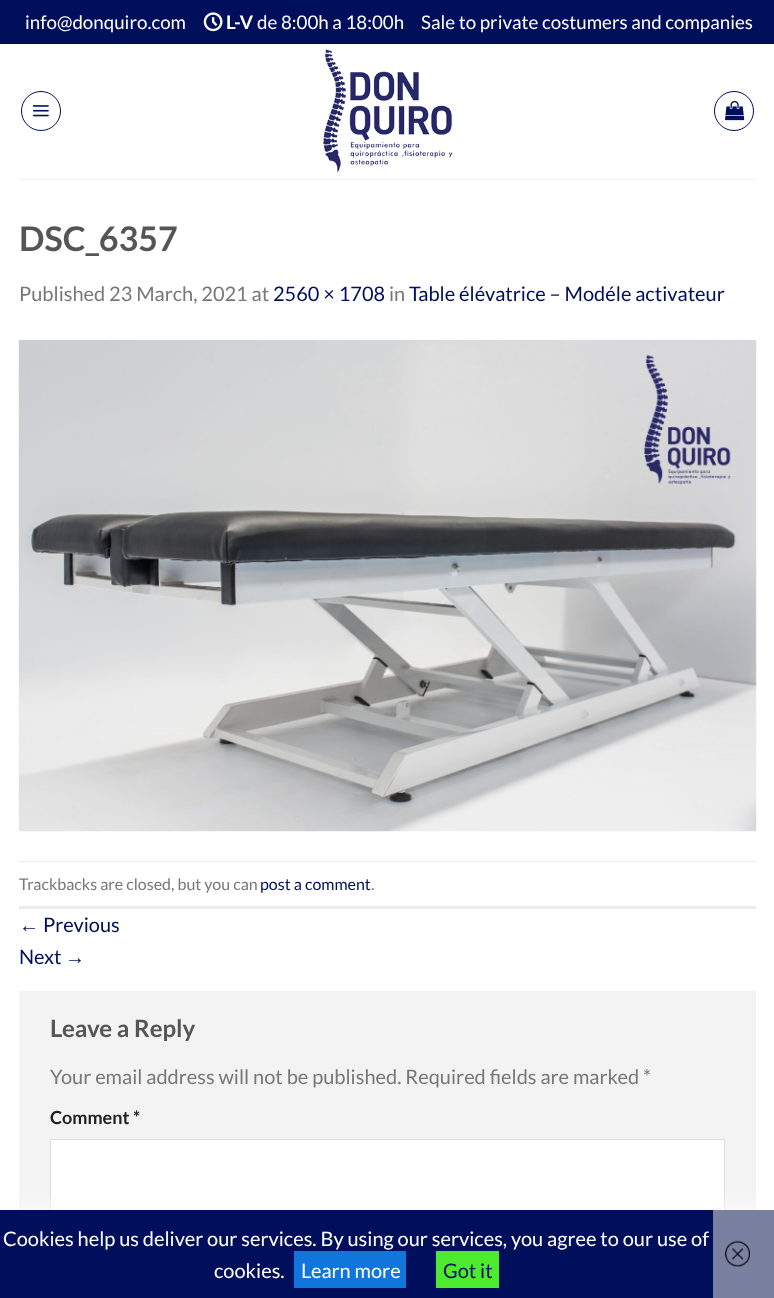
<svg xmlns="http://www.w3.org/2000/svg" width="774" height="1298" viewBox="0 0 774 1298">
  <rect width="100%" height="100%" fill="rgb(255,255,255)"/>
  <rect x="0" y="0" width="774" height="44" fill="rgb(0,15,91)"/>
  <text x="25" y="29" font-family="Lato" font-size="18.75" fill="rgb(255,255,255)">info@donquiro.com</text>
  <image x="203" y="12" width="20" height="20" href="pic1.png"/>
  <text x="226" y="29" font-family="Lato" font-size="18.75" font-weight="bold" fill="rgb(255,255,255)">L-V</text>
  <g font-family="Lato" font-size="18.75" fill="rgb(255,255,255)">
    <text x="257" y="29">de 8:00h a 18:00h</text>
    <text x="421" y="29">Sale to private costumers and companies</text>
  </g>
  <circle cx="41" cy="111" r="19.5" fill="none" stroke="rgb(0,15,91)"/>
  <image x="32" y="105" width="17" height="12" href="pic2.png"/>
  <image x="323" y="49" width="130" height="124" href="pic3.png"/>
  <circle cx="734" cy="111" r="19.5" fill="none" stroke="rgb(0,15,91)"/>
  <image x="725" y="100" width="20" height="21" href="pic4.png"/>
  <rect x="19" y="179" width="737" height="1" fill="rgb(241,241,241)"/>
  <text x="19" y="251" font-family="Lato" font-size="34" font-weight="bold" fill="rgb(85,85,85)">DSC_6357</text>
  <text x="19" y="301" font-family="Lato" font-size="20" fill="rgb(119,119,119)">Published 23 March, 2021 at</text>
  <text x="273" y="301" font-family="Lato" font-size="20" fill="rgb(0,15,91)">2560 × 1708</text>
  <text x="389" y="301" font-family="Lato" font-size="20" fill="rgb(119,119,119)">in</text>
  <text x="409" y="301" font-family="Lato" font-size="20" fill="rgb(0,15,91)">Table élévatrice – Modéle activateur</text>
  <image x="18" y="340" width="739" height="492" href="pic5.png"/>
  <rect x="19" y="861" width="737" height="1" fill="rgb(236,236,236)"/>
  <rect x="19" y="906" width="737" height="3" fill="rgb(236,236,236)"/>
  <text x="19" y="890" font-family="Lato" font-size="16" fill="rgb(119,119,119)">Trackbacks are closed, but you can</text>
  <text x="260" y="890" font-family="Lato" font-size="16" fill="rgb(0,15,91)">post a comment</text>
  <text x="371" y="890" font-family="Lato" font-size="16" fill="rgb(119,119,119)">.</text>
  <text x="19" y="932" font-family="Liberation Sans" font-size="20" fill="rgb(0,15,91)">←</text>
  <g font-family="Lato" font-size="20" fill="rgb(0,15,91)">
    <text x="43" y="932">Previous</text>
    <text x="19" y="964">Next</text>
  </g>
  <text x="65" y="964" font-family="Liberation Sans" font-size="20" fill="rgb(0,15,91)">→</text>
  <rect x="19" y="991" width="737" height="219" fill="rgb(243,243,243)"/>
  <text x="50" y="1037" font-family="Lato" font-size="24" font-weight="bold" fill="rgb(85,85,85)">Leave a Reply</text>
  <text x="50" y="1084" font-family="Lato" font-size="20" fill="rgb(119,119,119)">Your email address will not be published. Required fields are marked *</text>
  <text x="50" y="1124" font-family="Lato" font-size="18" font-weight="bold" fill="rgb(34,34,34)">Comment *</text>
  <rect x="51" y="1140" width="673" height="70" fill="rgb(255,255,255)"/>
  <rect x="50.5" y="1139.5" width="674" height="149" fill="none" stroke="rgb(221,221,221)"/>
  <rect x="0" y="1210" width="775" height="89" fill="rgb(255,255,255)" filter="blur(12.5px)"/>
  <rect x="0" y="1210" width="713" height="88" fill="rgb(0,15,91)"/>
  <g font-family="Lato" font-size="20" fill="rgb(255,255,255)">
    <text x="3" y="1246">Cookies help us deliver our services. By using our services, you agree to our use of</text>
    <text x="214" y="1278">cookies.</text>
  </g>
  <rect x="294" y="1251" width="112" height="37" fill="rgb(17,118,219)"/>
  <text x="301" y="1278" font-family="Lato" font-size="20" fill="rgb(255,255,255)">Learn more</text>
  <rect x="436" y="1251" width="63" height="37" fill="rgb(78,234,46)"/>
  <text x="443" y="1278" font-family="Lato" font-size="20" fill="rgb(0,15,91)">Got it</text>
  <rect x="713" y="1210" width="61" height="88" fill="rgb(122,128,159)"/>
  <image x="725" y="1240" width="25" height="27" href="pic6.png"/>
</svg>
